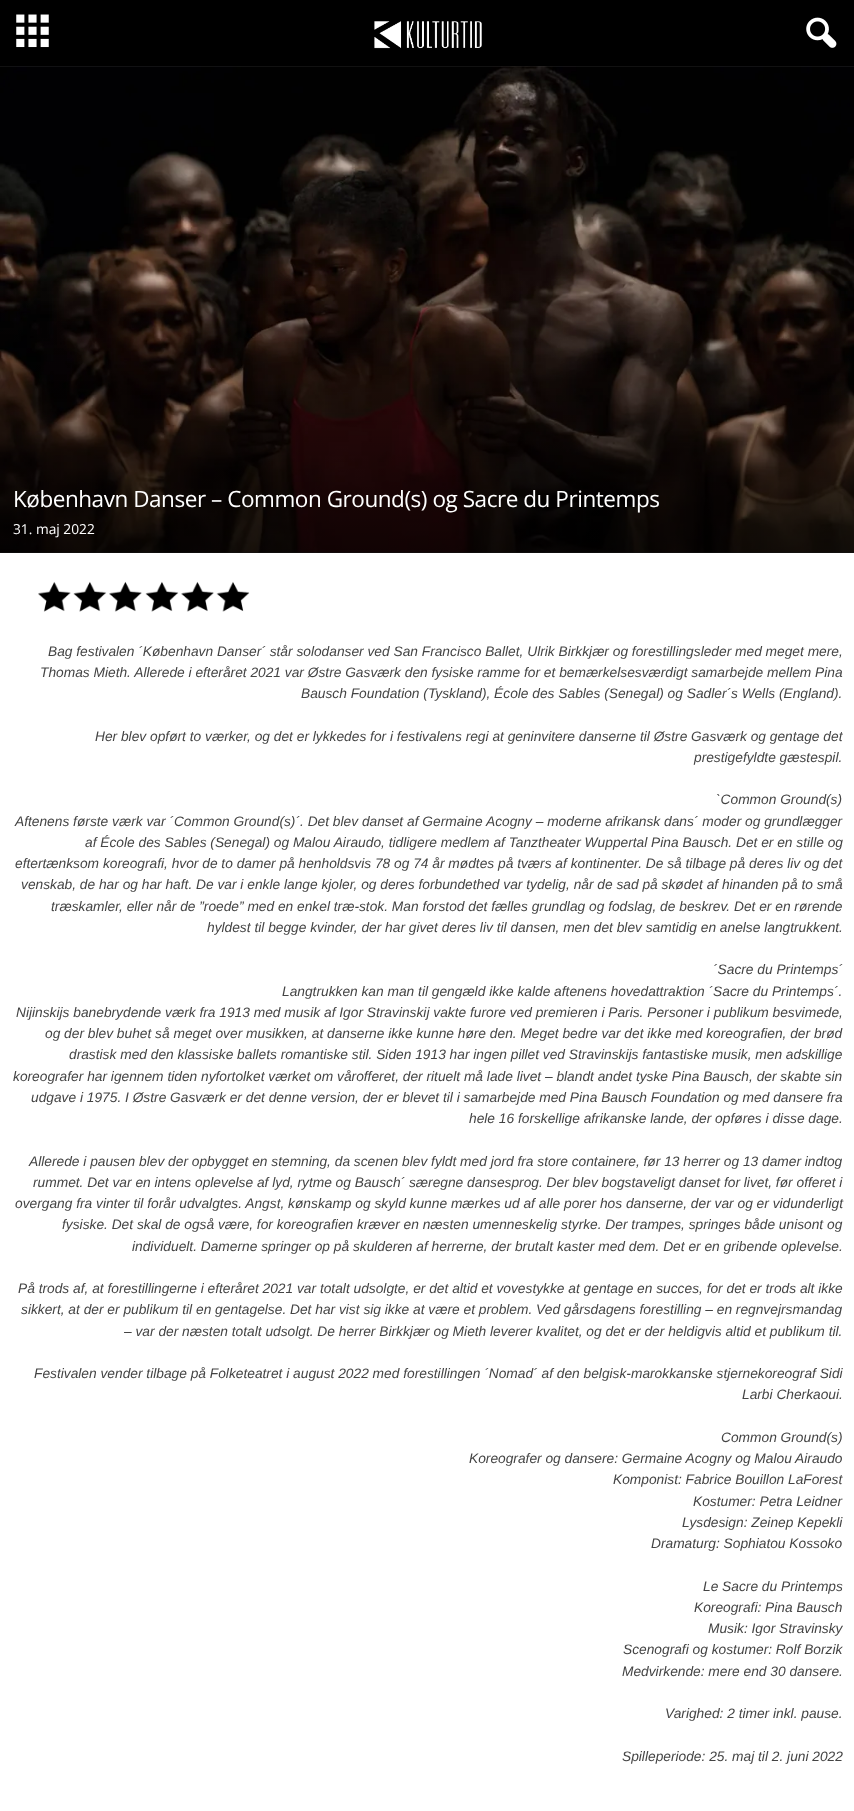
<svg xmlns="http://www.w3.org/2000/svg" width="854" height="1811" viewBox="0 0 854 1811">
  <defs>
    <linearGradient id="g1" gradientUnits="userSpaceOnUse" x1="428" y1="260" x2="428" y2="553"><stop offset="0" stop-color="rgb(0,0,0)" stop-opacity="0"/><stop offset="1" stop-color="rgb(0,0,0)" stop-opacity="0.7"/></linearGradient>
  </defs>
  <rect width="100%" height="100%" fill="rgb(255,255,255)"/>
  <rect x="0" y="0" width="854" height="66" fill="rgb(0,0,0)"/>
  <image x="16" y="14" width="33" height="34" href="pic1.png"/>
  <image x="374" y="21" width="108" height="28" href="pic2.png"/>
  <image x="806" y="17" width="31" height="31" href="pic3.png"/>
  <rect x="0" y="66" width="854" height="487" fill="rgb(68,68,68)"/>
  <image x="0" y="66" width="854" height="487" href="pic4.png"/>
  <rect x="0" y="269" width="854" height="284" fill="url(#g1)"/>
  <text x="13" y="507" font-family="Open Sans" font-size="22.5" letter-spacing="-0.45" fill="rgb(255,255,255)">København Danser – Common Ground(s) og Sacre du Printemps</text>
  <text x="13" y="534" font-family="Open Sans" font-size="13.75" fill="rgb(255,255,255)">31. maj 2022</text>
  <image x="38" y="581" width="212" height="31" href="pic5.png"/>
  <g font-family="Liberation Sans" font-size="13.75" font-style="italic" fill="rgb(68,68,68)">
    <text x="48" y="656">Bag festivalen ´København Danser´ står solodanser ved San Francisco Ballet, Ulrik Birkkjær og forestillingsleder med meget mere,</text>
    <text x="40" y="677">Thomas Mieth. Allerede i efteråret 2021 var Østre Gasværk den fysiske ramme for et bemærkelsesværdigt samarbejde mellem Pina</text>
    <text x="301" y="698">Bausch Foundation (Tyskland), École des Sables (Senegal) og Sadler´s Wells (England).</text>
    <text x="95" y="741">Her blev opført to værker, og det er lykkedes for i festivalens regi at geninvitere danserne til Østre Gasværk og gentage det</text>
    <text x="694" y="762">prestigefyldte gæstespil.</text>
    <text x="716" y="804">`Common Ground(s)</text>
    <text x="15" y="826">Aftenens første værk var ´Common Ground(s)´. Det blev danset af Germaine Acogny – moderne afrikansk dans´ moder og grundlægger</text>
    <text x="85" y="847">af École des Sables (Senegal) og Malou Airaudo, tidligere medlem af Tanztheater Wuppertal Pina Bausch. Det er en stille og</text>
    <text x="15" y="868">eftertænksom koreografi, hvor de to damer på henholdsvis 78 og 74 år mødtes på tværs af kontinenter. De så tilbage på deres liv og det</text>
    <text x="21" y="889">venskab, de har og har haft. De var i enkle lange kjoler, og deres forbundethed var tydelig, når de sad på skødet af hinanden på to små</text>
    <text x="51" y="911">træskamler, eller når de ”roede” med en enkel træ-stok. Man forstod det fælles grundlag og fodslag, de beskrev. Det er en rørende</text>
    <text x="207" y="932">hyldest til begge kvinder, der har givet deres liv til dansen, men det blev samtidig en anelse langtrukkent.</text>
    <text x="713" y="974">´Sacre du Printemps´</text>
    <text x="282" y="996">Langtrukken kan man til gengæld ikke kalde aftenens hovedattraktion ´Sacre du Printemps´.</text>
    <text x="16" y="1017">Nijinskijs banebrydende værk fra 1913 med musik af Igor Stravinskij vakte furore ved premieren i Paris. Personer i publikum besvimede,</text>
    <text x="45" y="1038">og der blev buhet så meget over musikken, at danserne ikke kunne høre den. Meget bedre var det ikke med koreografien, der brød</text>
    <text x="69" y="1059">drastisk med den klassiske ballets romantiske stil. Siden 1913 har ingen pillet ved Stravinskijs fantastiske musik, men adskillige</text>
    <text x="13" y="1081">koreografer har igennem tiden nyfortolket værket om vårofferet, der rituelt må lade livet – blandt andet tyske Pina Bausch, der skabte sin</text>
    <text x="31" y="1102">udgave i 1975. I Østre Gasværk er det denne version, der er blevet til i samarbejde med Pina Bausch Foundation og med dansere fra</text>
    <text x="469" y="1123">hele 16 forskellige afrikanske lande, der opføres i disse dage.</text>
    <text x="29" y="1166">Allerede i pausen blev der opbygget en stemning, da scenen blev fyldt med jord fra store containere, før 13 herrer og 13 damer indtog</text>
    <text x="33" y="1187">rummet. Det var en intens oplevelse af lyd, rytme og Bausch´ særegne dansesprog. Der blev bogstaveligt danset for livet, før offeret i</text>
    <text x="15" y="1208">overgang fra vinter til forår udvalgtes. Angst, kønskamp og skyld kunne mærkes ud af alle porer hos danserne, der var og er vidunderligt</text>
    <text x="62" y="1229">fysiske. Det skal de også være, for koreografien kræver en næsten umenneskelig styrke. Der trampes, springes både unisont og</text>
    <text x="132" y="1251">individuelt. Damerne springer op på skulderen af herrerne, der brutalt kaster med dem. Det er en gribende oplevelse.</text>
    <text x="18" y="1293">På trods af, at forestillingerne i efteråret 2021 var totalt udsolgte, er det altid et vovestykke at gentage en succes, for det er trods alt ikke</text>
    <text x="21" y="1314">sikkert, at der er publikum til en gentagelse. Det har vist sig ikke at være et problem. Ved gårsdagens forestilling – en regnvejrsmandag</text>
    <text x="124" y="1336">– var der næsten totalt udsolgt. De herrer Birkkjær og Mieth leverer kvalitet, og det er der heldigvis altid et publikum til.</text>
    <text x="34" y="1378">Festivalen vender tilbage på Folketeatret i august 2022 med forestillingen ´Nomad´ af den belgisk-marokkanske stjernekoreograf Sidi</text>
    <text x="742" y="1399">Larbi Cherkaoui.</text>
    <text x="721" y="1442">Common Ground(s)</text>
    <text x="469" y="1463">Koreografer og dansere: Germaine Acogny og Malou Airaudo</text>
    <text x="613" y="1484">Komponist: Fabrice Bouillon LaForest</text>
    <text x="693" y="1506">Kostumer: Petra Leidner</text>
    <text x="682" y="1527">Lysdesign: Zeinep Kepekli</text>
    <text x="651" y="1548">Dramaturg: Sophiatou Kossoko</text>
    <text x="703" y="1591">Le Sacre du Printemps</text>
    <text x="694" y="1612">Koreografi: Pina Bausch</text>
    <text x="708" y="1633">Musik: Igor Stravinsky</text>
    <text x="623" y="1654">Scenografi og kostumer: Rolf Borzik</text>
    <text x="622" y="1676">Medvirkende: mere end 30 dansere.</text>
    <text x="665" y="1718">Varighed: 2 timer inkl. pause.</text>
    <text x="622" y="1761">Spilleperiode: 25. maj til 2. juni 2022</text>
  </g>
</svg>
